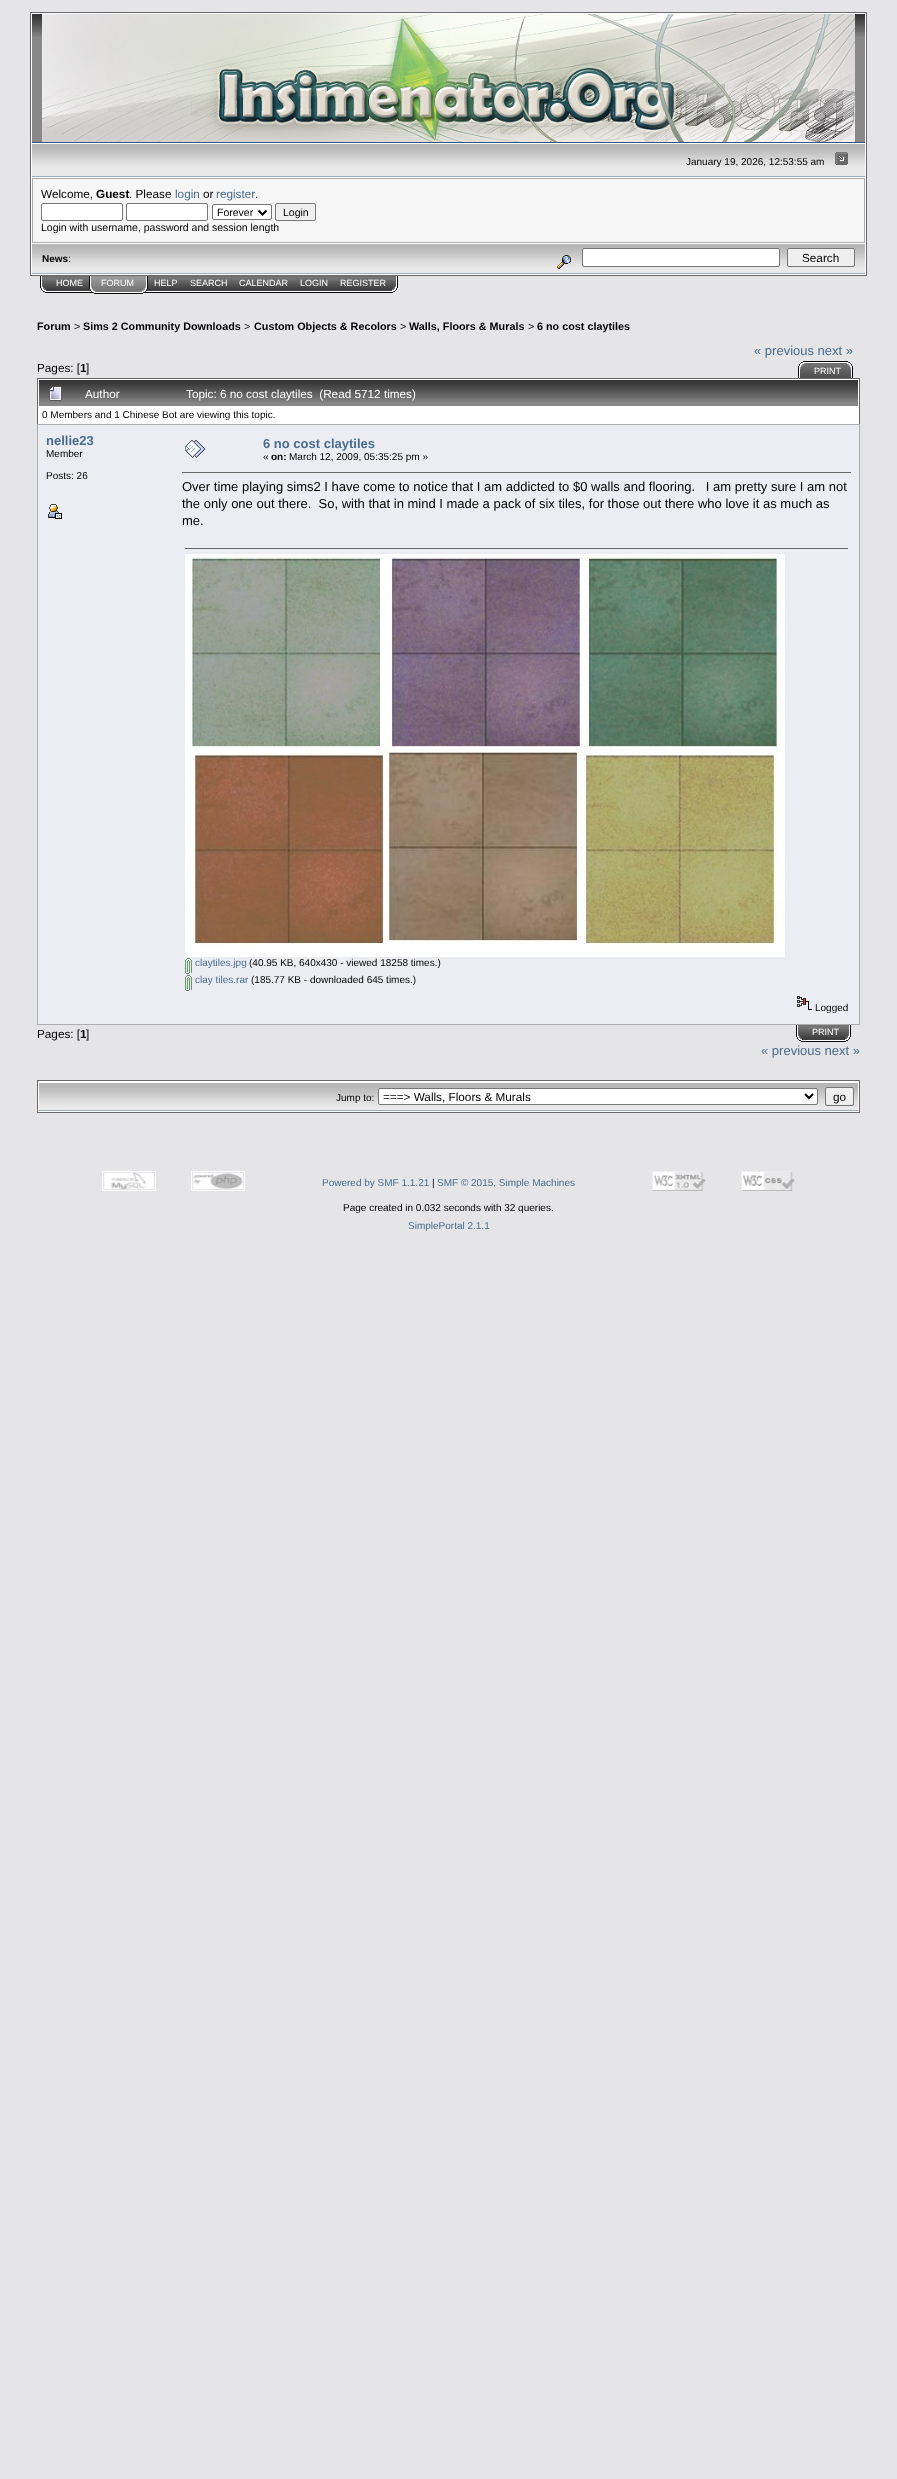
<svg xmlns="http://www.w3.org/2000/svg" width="897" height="2479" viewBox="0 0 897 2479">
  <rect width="100%" height="100%" fill="rgb(229,229,232)"/>
  <rect x="30.5" y="12.5" width="836" height="263" fill="rgb(255,255,255)" stroke="rgb(105,105,105)"/>
  <rect x="32" y="37" width="833" height="105" fill="rgb(136,136,136)"/>
  <image x="32" y="14" width="833" height="23" href="pic1.png"/>
  <rect x="32" y="142" width="833" height="1" fill="rgb(55,85,118)"/>
  <image x="42" y="14" width="813" height="128" href="pic2.png"/>
  <image x="32" y="144" width="833" height="32" href="pic3.png"/>
  <rect x="32" y="176" width="833" height="1" fill="rgb(155,174,191)"/>
  <text x="686" y="165" font-family="Liberation Sans" font-size="10" fill="rgb(0,0,0)">January 19, 2026, 12:53:55 am</text>
  <image x="835" y="152" width="13" height="13" href="pic4.png"/>
  <rect x="32" y="178" width="833" height="65" fill="rgb(173,173,173)"/>
  <rect x="33" y="179" width="831" height="63" fill="rgb(246,246,246)"/>
  <text x="41" y="198" font-family="Liberation Sans" font-size="11.75" fill="rgb(0,0,0)">Welcome,</text>
  <text x="96" y="198" font-family="Liberation Sans" font-size="11.75" font-weight="bold" fill="rgb(0,0,0)">Guest</text>
  <text x="129" y="198" font-family="Liberation Sans" font-size="11.75" fill="rgb(0,0,0)">. Please</text>
  <text x="175" y="198" font-family="Liberation Sans" font-size="11.75" fill="rgb(71,108,142)">login</text>
  <text x="203" y="198" font-family="Liberation Sans" font-size="11.75" fill="rgb(0,0,0)">or</text>
  <text x="216" y="198" font-family="Liberation Sans" font-size="11.75" fill="rgb(71,108,142)">register</text>
  <text x="255" y="198" font-family="Liberation Sans" font-size="11.75" fill="rgb(0,0,0)">.</text>
  <rect x="41.5" y="203.5" width="81" height="17" rx="1.5" fill="rgb(255,255,255)" stroke="rgb(118,118,118)"/>
  <rect x="126.5" y="203.5" width="81" height="17" rx="1.5" fill="rgb(255,255,255)" stroke="rgb(118,118,118)"/>
  <rect x="212.5" y="204.5" width="59" height="15" rx="1.5" fill="rgb(255,255,255)" stroke="rgb(118,118,118)"/>
  <path d="M258.5 210.5L262.5 214.5L266.5 210.5" fill="none" stroke="rgb(0,0,0)" stroke-width="2"/>
  <text x="217" y="216" font-family="Liberation Sans" font-size="10.5" fill="rgb(0,0,0)">Forever</text>
  <rect x="275.5" y="203.5" width="40" height="17" rx="1.5" fill="rgb(239,239,239)" stroke="rgb(118,118,118)"/>
  <g font-family="Liberation Sans" font-size="10.5" fill="rgb(0,0,0)">
    <text x="283" y="216">Login</text>
    <text x="41" y="231">Login with username, password and session length</text>
  </g>
  <image x="32" y="244" width="508" height="29" href="pic5.png"/>
  <rect x="32" y="273" width="833" height="1" fill="rgb(155,174,191)"/>
  <text x="42" y="262" font-family="Liberation Sans" font-size="10" font-weight="bold" fill="rgb(0,0,0)">News</text>
  <text x="68" y="262" font-family="Liberation Sans" font-size="10" fill="rgb(0,0,0)">:</text>
  <image x="540" y="244" width="325" height="29" href="pic6.png"/>
  <image x="557" y="255" width="14" height="14" href="pic7.png"/>
  <rect x="582.5" y="248.5" width="197" height="18" rx="1.5" fill="rgb(255,255,255)" stroke="rgb(118,118,118)"/>
  <rect x="787.5" y="248.5" width="67" height="18" rx="1.5" fill="rgb(239,239,239)" stroke="rgb(118,118,118)"/>
  <text x="802" y="262" font-family="Liberation Sans" font-size="11.75" fill="rgb(0,0,0)">Search</text>
  <image x="40" y="276" width="10" height="17" href="pic8.png"/>
  <image x="50" y="276" width="39" height="17" href="pic9.png"/>
  <text x="56" y="286" font-family="Liberation Sans" font-size="9" fill="rgb(255,255,255)">HOME</text>
  <image x="89" y="276" width="6" height="18" href="pic10.png"/>
  <image x="95" y="276" width="45" height="18" href="pic11.png"/>
  <text x="101" y="286" font-family="Liberation Sans" font-size="9" fill="rgb(255,255,255)">FORUM</text>
  <image x="140" y="276" width="8" height="18" href="pic12.png"/>
  <image x="148" y="276" width="36" height="17" href="pic13.png"/>
  <text x="154" y="286" font-family="Liberation Sans" font-size="9" fill="rgb(255,255,255)">HELP</text>
  <image x="184" y="276" width="49" height="17" href="pic14.png"/>
  <text x="190" y="286" font-family="Liberation Sans" font-size="9" fill="rgb(255,255,255)">SEARCH</text>
  <image x="233" y="276" width="61" height="17" href="pic15.png"/>
  <text x="239" y="286" font-family="Liberation Sans" font-size="9" fill="rgb(255,255,255)">CALENDAR</text>
  <image x="294" y="276" width="40" height="17" href="pic16.png"/>
  <text x="300" y="286" font-family="Liberation Sans" font-size="9" fill="rgb(255,255,255)">LOGIN</text>
  <image x="334" y="276" width="58" height="17" href="pic17.png"/>
  <text x="340" y="286" font-family="Liberation Sans" font-size="9" fill="rgb(255,255,255)">REGISTER</text>
  <image x="392" y="276" width="6" height="17" href="pic18.png"/>
  <text x="37" y="330" font-family="Liberation Sans" font-size="10.8" font-weight="bold" fill="rgb(0,0,0)">Forum</text>
  <text x="74" y="330" font-family="Liberation Sans" font-size="10.8" fill="rgb(0,0,0)">&gt;</text>
  <text x="83" y="330" font-family="Liberation Sans" font-size="10.8" font-weight="bold" fill="rgb(0,0,0)">Sims 2 Community Downloads</text>
  <text x="244" y="330" font-family="Liberation Sans" font-size="10.8" fill="rgb(0,0,0)">&gt;</text>
  <text x="254" y="330" font-family="Liberation Sans" font-size="10.8" font-weight="bold" fill="rgb(0,0,0)">Custom Objects &amp; Recolors</text>
  <text x="400" y="330" font-family="Liberation Sans" font-size="10.8" fill="rgb(0,0,0)">&gt;</text>
  <text x="409" y="330" font-family="Liberation Sans" font-size="10.8" font-weight="bold" fill="rgb(0,0,0)">Walls, Floors &amp; Murals</text>
  <text x="528" y="330" font-family="Liberation Sans" font-size="10.8" fill="rgb(0,0,0)">&gt;</text>
  <text x="537" y="330" font-family="Liberation Sans" font-size="10.8" font-weight="bold" fill="rgb(0,0,0)">6 no cost claytiles</text>
  <text x="37" y="372" font-family="Liberation Sans" font-size="11.75" fill="rgb(0,0,0)">Pages: [</text>
  <text x="80" y="372" font-family="Liberation Sans" font-size="11.75" font-weight="bold" fill="rgb(0,0,0)">1</text>
  <text x="86" y="372" font-family="Liberation Sans" font-size="11.75" fill="rgb(0,0,0)">]</text>
  <text x="754" y="355" font-family="Liberation Sans" font-size="13" fill="rgb(71,108,142)">« previous next »</text>
  <image x="798" y="361" width="10" height="17" href="pic19.png"/>
  <image x="808" y="361" width="39" height="17" href="pic20.png"/>
  <text x="814" y="374" font-family="Liberation Sans" font-size="9" fill="rgb(255,255,255)">PRINT</text>
  <image x="847" y="361" width="6" height="17" href="pic21.png"/>
  <rect x="38" y="379" width="821" height="45" fill="rgb(255,255,255)"/>
  <rect x="37" y="378" width="823" height="1" fill="rgb(105,105,105)"/>
  <rect x="859" y="378" width="1" height="46" fill="rgb(105,105,105)"/>
  <rect x="37" y="378" width="1" height="46" fill="rgb(105,105,105)"/>
  <rect x="39" y="403" width="819" height="3" fill="rgb(136,136,136)"/>
  <image x="39" y="380" width="36" height="23" href="pic22.png"/>
  <image x="49" y="386" width="13" height="15" href="pic23.png"/>
  <image x="75" y="380" width="105" height="23" href="pic24.png"/>
  <text x="85" y="398" font-family="Liberation Sans" font-size="11.75" fill="rgb(255,255,255)">Author</text>
  <image x="180" y="380" width="678" height="23" href="pic25.png"/>
  <text x="186" y="398" font-family="Liberation Sans" font-size="11.75" fill="rgb(255,255,255)" xml:space="preserve">Topic: 6 no cost claytiles  (Read 5712 times)</text>
  <text x="42" y="418" font-family="Liberation Sans" font-size="10" fill="rgb(0,0,0)">0 Members and 1 Chinese Bot are viewing this topic.</text>
  <rect x="37" y="424" width="823" height="601" fill="rgb(173,173,173)"/>
  <rect x="38" y="425" width="821" height="599" fill="rgb(236,237,243)"/>
  <text x="46" y="445" font-family="Liberation Sans" font-size="13" font-weight="bold" fill="rgb(71,108,142)">nellie23</text>
  <g font-family="Liberation Sans" font-size="10" fill="rgb(0,0,0)">
    <text x="46" y="457">Member</text>
    <text x="46" y="479">Posts: 26</text>
  </g>
  <image x="48" y="504" width="14" height="15" href="pic26.png"/>
  <image x="185" y="440" width="20" height="18" href="pic27.png"/>
  <text x="263" y="448" font-family="Liberation Sans" font-size="13" font-weight="bold" fill="rgb(71,108,142)">6 no cost claytiles</text>
  <text x="263" y="460" font-family="Liberation Sans" font-size="10" fill="rgb(0,0,0)">«</text>
  <text x="271" y="460" font-family="Liberation Sans" font-size="10" font-weight="bold" fill="rgb(0,0,0)">on:</text>
  <text x="289" y="460" font-family="Liberation Sans" font-size="10" fill="rgb(0,0,0)">March 12, 2009, 05:35:25 pm »</text>
  <rect x="182" y="472" width="669" height="1" fill="rgb(102,102,102)"/>
  <g font-family="Liberation Sans" font-size="13" fill="rgb(0,0,0)">
    <text xml:space="preserve"><tspan x="182" y="491">Over time playing sims2 I have come to notice that I am addicted to $0 walls and flooring.   I am pretty sure I am not</tspan><tspan x="182" y="508">the only one out there.  So, with that in mind I made a pack of six tiles, for those out there who love it as much as</tspan><tspan x="182" y="525">me.</tspan></text>
  </g>
  <rect x="185" y="548" width="663" height="1" fill="rgb(102,102,102)"/>
  <image x="185" y="554" width="600" height="403" href="pic28.png"/>
  <image x="185" y="958" width="7" height="16" href="pic29.png"/>
  <text x="195" y="966" font-family="Liberation Sans" font-size="10" fill="rgb(71,108,142)">claytiles.jpg</text>
  <text x="249" y="966" font-family="Liberation Sans" font-size="10" fill="rgb(0,0,0)">(40.95 KB, 640x430 - viewed 18258 times.)</text>
  <image x="185" y="975" width="7" height="16" href="pic29.png"/>
  <text x="195" y="983" font-family="Liberation Sans" font-size="10" fill="rgb(71,108,142)">clay tiles.rar</text>
  <text x="251" y="983" font-family="Liberation Sans" font-size="10" fill="rgb(0,0,0)">(185.77 KB - downloaded 645 times.)</text>
  <image x="797" y="996" width="15" height="14" href="pic30.png"/>
  <text x="815" y="1011" font-family="Liberation Sans" font-size="10" fill="rgb(0,0,0)">Logged</text>
  <text x="37" y="1038" font-family="Liberation Sans" font-size="11.75" fill="rgb(0,0,0)">Pages: [</text>
  <text x="80" y="1038" font-family="Liberation Sans" font-size="11.75" font-weight="bold" fill="rgb(0,0,0)">1</text>
  <text x="86" y="1038" font-family="Liberation Sans" font-size="11.75" fill="rgb(0,0,0)">]</text>
  <image x="796" y="1025" width="10" height="17" href="pic8.png"/>
  <image x="806" y="1025" width="39" height="17" href="pic9.png"/>
  <text x="812" y="1035" font-family="Liberation Sans" font-size="9" fill="rgb(255,255,255)">PRINT</text>
  <image x="845" y="1025" width="6" height="17" href="pic18.png"/>
  <text x="761" y="1055" font-family="Liberation Sans" font-size="13" fill="rgb(71,108,142)">« previous next »</text>
  <rect x="37.5" y="1080.5" width="822" height="32" fill="rgb(255,255,255)" stroke="rgb(105,105,105)"/>
  <image x="39" y="1083" width="819" height="27" href="pic31.png"/>
  <rect x="39" y="1110" width="819" height="1" fill="rgb(155,174,191)"/>
  <text x="336" y="1101" font-family="Liberation Sans" font-size="10" fill="rgb(0,0,0)">Jump to:</text>
  <rect x="378.5" y="1088.5" width="439" height="16" rx="1.5" fill="rgb(255,255,255)" stroke="rgb(118,118,118)"/>
  <path d="M805 1094L809 1098L813 1094" fill="none" stroke="rgb(0,0,0)" stroke-width="2"/>
  <text x="383" y="1101" font-family="Liberation Sans" font-size="11.75" fill="rgb(0,0,0)">===&gt; Walls, Floors &amp; Murals</text>
  <rect x="825.5" y="1087.5" width="28" height="18" rx="1.5" fill="rgb(239,239,239)" stroke="rgb(118,118,118)"/>
  <text x="833" y="1101" font-family="Liberation Sans" font-size="11.75" fill="rgb(0,0,0)">go</text>
  <image x="102" y="1171" width="54" height="20" href="pic32.png"/>
  <image x="191" y="1171" width="54" height="20" href="pic33.png"/>
  <text x="322" y="1186" font-family="Liberation Sans" font-size="10" fill="rgb(71,108,142)">Powered by SMF 1.1.21</text>
  <text x="432" y="1186" font-family="Liberation Sans" font-size="10" fill="rgb(0,0,0)">|</text>
  <text x="437" y="1186" font-family="Liberation Sans" font-size="10" fill="rgb(71,108,142)">SMF © 2015, Simple Machines</text>
  <image x="652" y="1171" width="54" height="20" href="pic34.png"/>
  <image x="741" y="1171" width="54" height="20" href="pic35.png"/>
  <text x="343" y="1211" font-family="Liberation Sans" font-size="10" fill="rgb(0,0,0)">Page created in 0.032 seconds with 32 queries.</text>
  <text x="408" y="1229" font-family="Liberation Sans" font-size="10" fill="rgb(71,108,142)">SimplePortal 2.1.1</text>
</svg>
